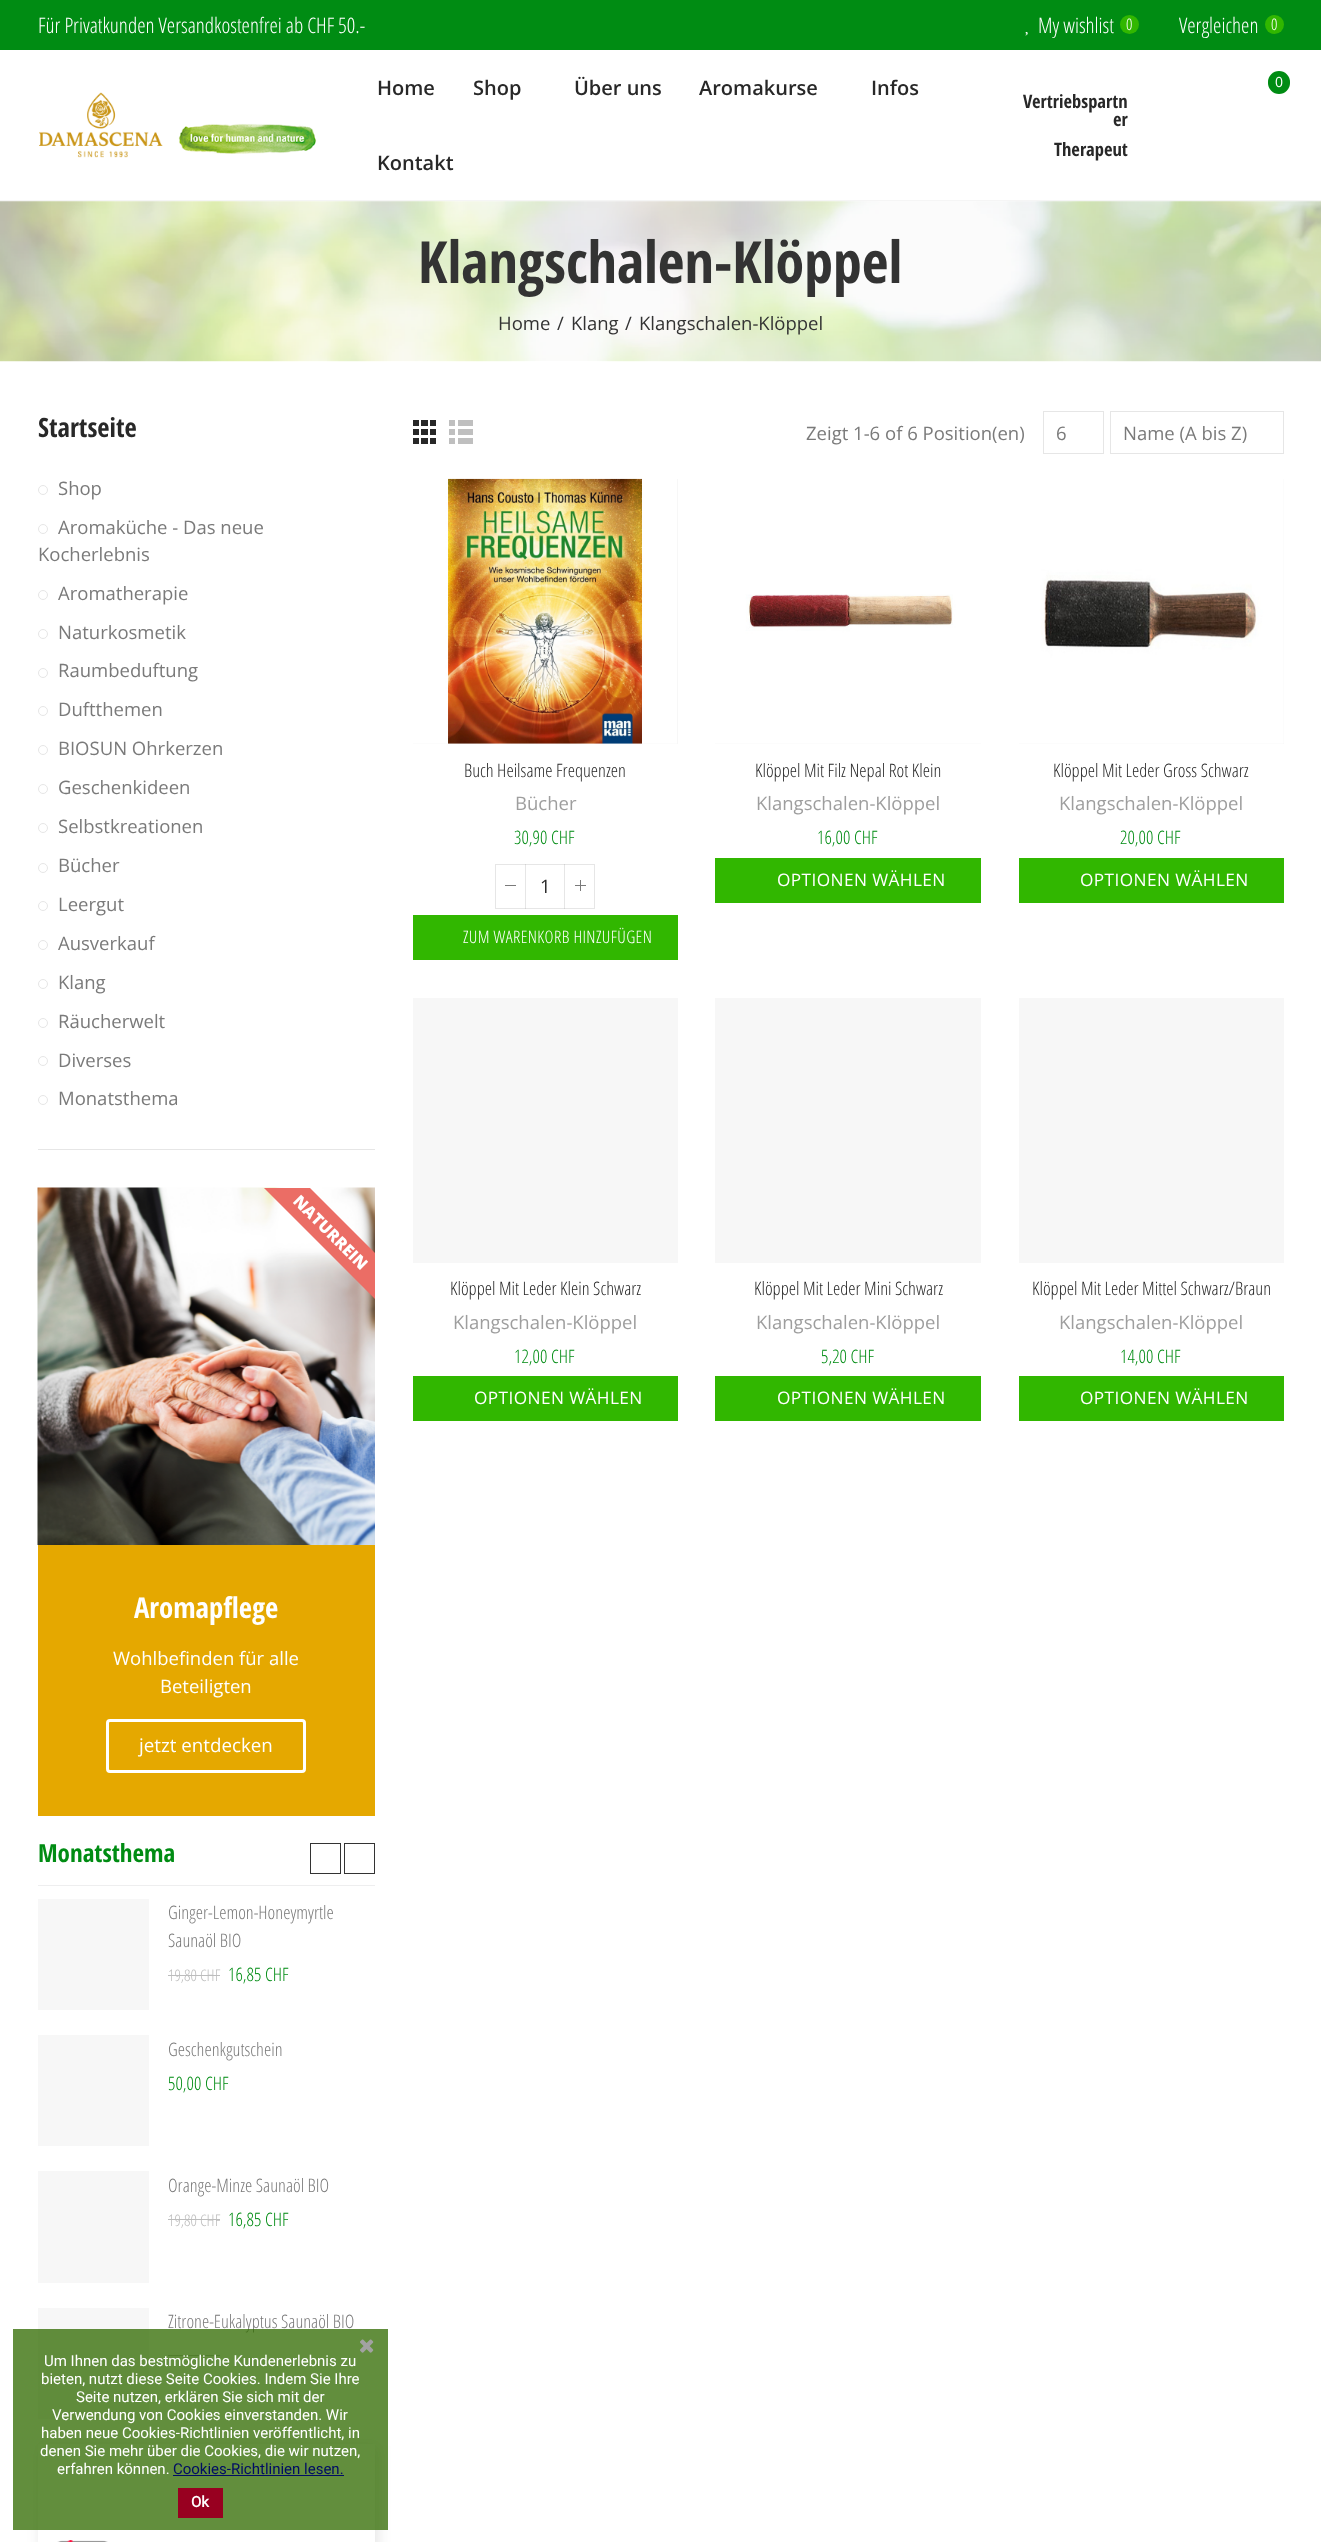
<svg xmlns="http://www.w3.org/2000/svg" width="1321" height="2542" viewBox="0 0 1321 2542">
  <defs>
    <clipPath id="clip1"><path d="M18 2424H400V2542H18ZM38 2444H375V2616H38Z" clip-rule="evenodd"/></clipPath>
  </defs>
  <rect width="100%" height="100%" fill="rgb(255,255,255)"/>
  <rect x="0" y="0" width="1321" height="50" fill="rgb(0,140,19)"/>
  <g font-family="Open Sans Condensed" font-size="21.25" font-weight="300" fill="rgb(255,255,255)">
    <text x="38" y="33">Für Privatkunden Versandkostenfrei ab CHF 50.-</text>
    <text x="1038" y="33">My wishlist</text>
  </g>
  <circle cx="1129.5" cy="24.5" r="9.5" fill="rgb(49,183,0)"/>
  <text x="1126" y="30" font-family="Open Sans Condensed" font-size="16" font-weight="300" fill="rgb(255,255,255)">0</text>
  <image x="1025" y="31" width="3" height="5" href="pic1.png"/>
  <text x="1179" y="33" font-family="Open Sans Condensed" font-size="21.25" font-weight="300" fill="rgb(255,255,255)">Vergleichen</text>
  <circle cx="1274.5" cy="24.5" r="9.5" fill="rgb(49,183,0)"/>
  <text x="1271" y="30" font-family="Open Sans Condensed" font-size="16" font-weight="300" fill="rgb(255,255,255)">0</text>
  <rect x="0" y="200" width="1321" height="1" fill="rgb(245,245,245)"/>
  <g font-family="Open Sans" font-size="20" font-weight="600" fill="rgb(40,40,40)">
    <text x="377" y="95">Home</text>
    <text x="473" y="95">Shop</text>
    <text x="574" y="95">Über uns</text>
    <text x="699" y="95">Aromakurse</text>
    <text x="871" y="95">Infos</text>
    <text x="377" y="170">Kontakt</text>
  </g>
  <rect x="1268" y="71" width="22" height="23" rx="11" fill="rgb(0,140,19)"/>
  <text x="1275" y="87" font-family="Open Sans" font-size="14" fill="rgb(255,255,255)">0</text>
  <image x="39" y="92" width="278" height="66" href="pic2.png"/>
  <g font-family="Open Sans Condensed" font-size="18.5" font-weight="bold" fill="rgb(40,40,40)">
    <text x="1023" y="108">Vertriebspartn</text>
    <text x="1113" y="126">er</text>
    <text x="1054" y="156">Therapeut</text>
  </g>
  <rect x="0" y="201" width="1321" height="160" fill="rgb(249,249,249)"/>
  <image x="0" y="201" width="1321" height="161" href="pic3.png"/>
  <text x="418" y="283" font-family="Open Sans Condensed" font-size="58" font-weight="bold" fill="rgb(51,51,51)">Klangschalen-Klöppel</text>
  <g font-family="Open Sans" font-size="18.5" fill="rgb(51,51,51)">
    <text x="498" y="330">Home</text>
    <text x="557" y="330">/</text>
    <text x="571" y="330">Klang</text>
    <text x="625" y="330">/</text>
    <text x="639" y="330">Klangschalen-Klöppel</text>
  </g>
  <rect x="38" y="1149" width="337" height="1" fill="rgb(230,230,230)"/>
  <text x="38" y="437" font-family="Open Sans Condensed" font-size="26.5" font-weight="bold" fill="rgb(40,40,40)">Startseite</text>
  <circle cx="43" cy="490" r="4.5" fill="none" stroke="rgb(230,230,230)"/>
  <text x="58" y="495" font-family="Open Sans" font-size="18.5" fill="rgb(122,122,122)">Shop</text>
  <circle cx="43" cy="529" r="4.5" fill="none" stroke="rgb(230,230,230)"/>
  <g font-family="Open Sans" font-size="18.5" fill="rgb(122,122,122)">
    <text x="58" y="534">Aromaküche - Das neue</text>
    <text x="38" y="561">Kocherlebnis</text>
  </g>
  <circle cx="43" cy="595" r="4.5" fill="none" stroke="rgb(230,230,230)"/>
  <text x="58" y="600" font-family="Open Sans" font-size="18.5" fill="rgb(122,122,122)">Aromatherapie</text>
  <circle cx="43" cy="634" r="4.5" fill="none" stroke="rgb(230,230,230)"/>
  <text x="58" y="639" font-family="Open Sans" font-size="18.5" fill="rgb(122,122,122)">Naturkosmetik</text>
  <circle cx="43" cy="673" r="4.5" fill="none" stroke="rgb(230,230,230)"/>
  <text x="58" y="677" font-family="Open Sans" font-size="18.5" fill="rgb(122,122,122)">Raumbeduftung</text>
  <circle cx="43" cy="711" r="4.5" fill="none" stroke="rgb(230,230,230)"/>
  <text x="58" y="716" font-family="Open Sans" font-size="18.5" fill="rgb(122,122,122)">Duftthemen</text>
  <circle cx="43" cy="750" r="4.5" fill="none" stroke="rgb(230,230,230)"/>
  <text x="58" y="755" font-family="Open Sans" font-size="18.5" fill="rgb(122,122,122)">BIOSUN Ohrkerzen</text>
  <circle cx="43" cy="789" r="4.5" fill="none" stroke="rgb(230,230,230)"/>
  <text x="58" y="794" font-family="Open Sans" font-size="18.5" fill="rgb(122,122,122)">Geschenkideen</text>
  <circle cx="43" cy="828" r="4.5" fill="none" stroke="rgb(230,230,230)"/>
  <text x="58" y="833" font-family="Open Sans" font-size="18.5" fill="rgb(122,122,122)">Selbstkreationen</text>
  <circle cx="43" cy="868" r="4.5" fill="none" stroke="rgb(230,230,230)"/>
  <text x="58" y="872" font-family="Open Sans" font-size="18.5" fill="rgb(122,122,122)">Bücher</text>
  <circle cx="43" cy="906" r="4.5" fill="none" stroke="rgb(230,230,230)"/>
  <text x="58" y="911" font-family="Open Sans" font-size="18.5" fill="rgb(122,122,122)">Leergut</text>
  <circle cx="43" cy="945" r="4.5" fill="none" stroke="rgb(230,230,230)"/>
  <text x="58" y="950" font-family="Open Sans" font-size="18.5" fill="rgb(122,122,122)">Ausverkauf</text>
  <circle cx="43" cy="984" r="4.5" fill="none" stroke="rgb(230,230,230)"/>
  <text x="58" y="989" font-family="Open Sans" font-size="18.5" fill="rgb(122,122,122)">Klang</text>
  <circle cx="43" cy="1023" r="4.5" fill="none" stroke="rgb(230,230,230)"/>
  <text x="58" y="1028" font-family="Open Sans" font-size="18.5" fill="rgb(122,122,122)">Räucherwelt</text>
  <circle cx="43" cy="1061" r="4.5" fill="none" stroke="rgb(230,230,230)"/>
  <text x="58" y="1067" font-family="Open Sans" font-size="18.5" fill="rgb(122,122,122)">Diverses</text>
  <circle cx="43" cy="1100" r="4.5" fill="none" stroke="rgb(230,230,230)"/>
  <text x="58" y="1105" font-family="Open Sans" font-size="18.5" fill="rgb(122,122,122)">Monatsthema</text>
  <image x="37" y="1187" width="338" height="358" href="pic4.png"/>
  <path d="M375 1299L264 1188H310L375 1253Z" fill="rgb(235,109,101)"/>
  <text x="292" y="1202" transform="rotate(45 292 1202)" font-family="Open Sans" font-size="16.25" font-weight="800" fill="rgb(255,255,255)">NATURREIN</text>
  <rect x="38" y="1545" width="337" height="271" fill="rgb(229,168,0)"/>
  <text x="134" y="1618" font-family="Open Sans Condensed" font-size="28.75" font-weight="bold" fill="rgb(255,255,255)">Aromapflege</text>
  <g font-family="Open Sans" font-size="18.5" fill="rgb(255,255,255)">
    <text x="113" y="1665">Wohlbefinden für alle</text>
    <text x="160" y="1693">Beteiligten</text>
  </g>
  <rect x="107.5" y="1720.5" width="197" height="51" rx="2.5" fill="none" stroke="rgb(255,255,255)" stroke-width="3"/>
  <text x="139" y="1752" font-family="Open Sans" font-size="18.75" fill="rgb(255,255,255)">jetzt entdecken</text>
  <rect x="38" y="1885" width="337" height="1" fill="rgb(238,238,239)"/>
  <text x="38" y="1862" font-family="Open Sans Condensed" font-size="25" font-weight="bold" fill="rgb(0,140,19)">Monatsthema</text>
  <rect x="310.5" y="1843.5" width="30" height="30" fill="none" stroke="rgb(51,51,51)"/>
  <rect x="344.5" y="1843.5" width="30" height="30" fill="none" stroke="rgb(51,51,51)"/>
  <rect x="38" y="1899" width="111" height="111" fill="rgb(247,247,247)"/>
  <g font-family="Open Sans Condensed" font-size="18.5" font-weight="300" fill="rgb(122,122,122)">
    <text>
      <tspan x="168" y="1919">Ginger-Lemon-Honeymyrtle</tspan>
      <tspan x="168" y="1947">Saunaöl BIO</tspan>
    </text>
  </g>
  <text x="168" y="1981" font-family="Open Sans Condensed" font-size="16" font-weight="300" fill="rgb(189,189,189)">19,80 CHF</text>
  <rect x="168" y="1975" width="52" height="1" fill="rgb(189,189,189)"/>
  <text x="228" y="1981" font-family="Open Sans Condensed" font-size="18.5" font-weight="300" fill="rgb(0,140,19)">16,85 CHF</text>
  <rect x="38" y="2035" width="111" height="111" fill="rgb(247,247,247)"/>
  <text x="168" y="2056" font-family="Open Sans Condensed" font-size="18.5" font-weight="300" fill="rgb(122,122,122)">Geschenkgutschein</text>
  <text x="168" y="2090" font-family="Open Sans Condensed" font-size="18.5" font-weight="300" fill="rgb(0,140,19)">50,00 CHF</text>
  <rect x="38" y="2171" width="111" height="112" fill="rgb(247,247,247)"/>
  <text x="168" y="2192" font-family="Open Sans Condensed" font-size="18.5" font-weight="300" fill="rgb(122,122,122)">Orange-Minze Saunaöl BIO</text>
  <text x="168" y="2226" font-family="Open Sans Condensed" font-size="16" font-weight="300" fill="rgb(189,189,189)">19,80 CHF</text>
  <rect x="168" y="2219" width="52" height="1" fill="rgb(189,189,189)"/>
  <text x="228" y="2226" font-family="Open Sans Condensed" font-size="18.5" font-weight="300" fill="rgb(0,140,19)">16,85 CHF</text>
  <rect x="38" y="2308" width="111" height="111" fill="rgb(247,247,247)"/>
  <text x="168" y="2328" font-family="Open Sans Condensed" font-size="18.5" font-weight="300" fill="rgb(122,122,122)">Zitrone-Eukalyptus Saunaöl BIO</text>
  <rect x="168" y="2355" width="52" height="1" fill="rgb(189,189,189)"/>
  <g clip-path="url(#clip1)">
    <rect x="40" y="2446" width="338" height="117" fill="rgba(0,0,0,0.1)" filter="blur(7px)"/>
  </g>
  <image x="57" y="2540" width="51" height="2" href="pic5.png"/>
  <image x="413" y="420" width="23" height="24" href="pic6.png"/>
  <image x="449" y="420" width="24" height="24" href="pic7.png"/>
  <text x="806" y="440" font-family="Open Sans" font-size="18.5" fill="rgb(122,122,122)">Zeigt 1-6 of 6 Position(en)</text>
  <rect x="1043.5" y="411.5" width="60" height="42" fill="none" stroke="rgb(230,230,230)"/>
  <text x="1056" y="440" font-family="Open Sans" font-size="18.5" fill="rgb(122,122,122)">6</text>
  <rect x="1110.5" y="411.5" width="173" height="42" fill="none" stroke="rgb(230,230,230)"/>
  <text x="1123" y="440" font-family="Open Sans" font-size="18.5" fill="rgb(122,122,122)">Name (A bis Z)</text>
  <rect x="413" y="479" width="265" height="265" fill="rgb(247,247,247)"/>
  <image x="413" y="478" width="264" height="266" href="pic8.png"/>
  <text x="464" y="777" font-family="Open Sans Condensed" font-size="18.5" font-weight="300" fill="rgb(40,40,40)">Buch Heilsame Frequenzen</text>
  <text x="515" y="810" font-family="Open Sans" font-size="18.5" fill="rgb(158,158,158)">Bücher</text>
  <text x="514" y="844" font-family="Open Sans Condensed" font-size="18.5" font-weight="300" fill="rgb(0,140,19)">30,90 CHF</text>
  <rect x="495.5" y="864.5" width="99" height="44" fill="none" stroke="rgb(230,230,230)"/>
  <rect x="525" y="864" width="1" height="45" fill="rgba(129,129,129,0.2)"/>
  <rect x="505" y="885" width="11" height="1" fill="rgb(122,122,122)"/>
  <text x="540" y="893" font-family="Open Sans" font-size="18.5" fill="rgb(40,40,40)">1</text>
  <rect x="564" y="864" width="1" height="45" fill="rgba(129,129,129,0.2)"/>
  <rect x="580" y="880" width="1" height="11" fill="rgb(122,122,122)"/>
  <rect x="575" y="885" width="11" height="1" fill="rgb(122,122,122)"/>
  <rect x="413" y="915" width="265" height="45" fill="rgb(49,183,0)"/>
  <text x="463" y="943" font-family="Open Sans Condensed" font-size="17.25" font-weight="300" letter-spacing="0.4" fill="rgb(255,255,255)">ZUM WARENKORB HINZUFÜGEN</text>
  <rect x="715" y="743" width="266" height="1" fill="rgb(247,247,247)"/>
  <image x="715" y="479" width="266" height="265" href="pic9.png"/>
  <text x="755" y="777" font-family="Open Sans Condensed" font-size="18.5" font-weight="300" fill="rgb(40,40,40)">Klöppel Mit Filz Nepal Rot Klein</text>
  <text x="756" y="810" font-family="Open Sans" font-size="18.5" fill="rgb(158,158,158)">Klangschalen-Klöppel</text>
  <text x="817" y="844" font-family="Open Sans Condensed" font-size="18.5" font-weight="300" fill="rgb(0,140,19)">16,00 CHF</text>
  <rect x="715" y="858" width="266" height="45" fill="rgb(49,183,0)"/>
  <text x="777" y="886" font-family="Open Sans" font-size="17.25" letter-spacing="0.4" fill="rgb(255,255,255)">OPTIONEN WÄHLEN</text>
  <rect x="1019" y="479" width="265" height="265" fill="rgb(247,247,247)"/>
  <image x="1019" y="479" width="265" height="265" href="pic10.png"/>
  <text x="1053" y="777" font-family="Open Sans Condensed" font-size="18.5" font-weight="300" fill="rgb(40,40,40)">Klöppel Mit Leder Gross Schwarz</text>
  <text x="1059" y="810" font-family="Open Sans" font-size="18.5" fill="rgb(158,158,158)">Klangschalen-Klöppel</text>
  <text x="1120" y="844" font-family="Open Sans Condensed" font-size="18.5" font-weight="300" fill="rgb(0,140,19)">20,00 CHF</text>
  <rect x="1019" y="858" width="265" height="45" fill="rgb(49,183,0)"/>
  <text x="1080" y="886" font-family="Open Sans" font-size="17.25" letter-spacing="0.4" fill="rgb(255,255,255)">OPTIONEN WÄHLEN</text>
  <rect x="413" y="998" width="265" height="265" fill="rgb(247,247,247)"/>
  <text x="450" y="1295" font-family="Open Sans Condensed" font-size="18.5" font-weight="300" fill="rgb(40,40,40)">Klöppel Mit Leder Klein Schwarz</text>
  <text x="453" y="1329" font-family="Open Sans" font-size="18.5" fill="rgb(158,158,158)">Klangschalen-Klöppel</text>
  <text x="514" y="1363" font-family="Open Sans Condensed" font-size="18.5" font-weight="300" fill="rgb(0,140,19)">12,00 CHF</text>
  <rect x="413" y="1376" width="265" height="45" fill="rgb(49,183,0)"/>
  <text x="474" y="1404" font-family="Open Sans" font-size="17.25" letter-spacing="0.4" fill="rgb(255,255,255)">OPTIONEN WÄHLEN</text>
  <rect x="715" y="998" width="266" height="265" fill="rgb(247,247,247)"/>
  <text x="754" y="1295" font-family="Open Sans Condensed" font-size="18.5" font-weight="300" fill="rgb(40,40,40)">Klöppel Mit Leder Mini Schwarz</text>
  <text x="756" y="1329" font-family="Open Sans" font-size="18.5" fill="rgb(158,158,158)">Klangschalen-Klöppel</text>
  <text x="821" y="1363" font-family="Open Sans Condensed" font-size="18.5" font-weight="300" fill="rgb(0,140,19)">5,20 CHF</text>
  <rect x="715" y="1376" width="266" height="45" fill="rgb(49,183,0)"/>
  <text x="777" y="1404" font-family="Open Sans" font-size="17.25" letter-spacing="0.4" fill="rgb(255,255,255)">OPTIONEN WÄHLEN</text>
  <rect x="1019" y="998" width="265" height="265" fill="rgb(247,247,247)"/>
  <text x="1032" y="1295" font-family="Open Sans Condensed" font-size="18.5" font-weight="300" fill="rgb(40,40,40)">Klöppel Mit Leder Mittel Schwarz/Braun</text>
  <text x="1059" y="1329" font-family="Open Sans" font-size="18.5" fill="rgb(158,158,158)">Klangschalen-Klöppel</text>
  <text x="1120" y="1363" font-family="Open Sans Condensed" font-size="18.5" font-weight="300" fill="rgb(0,140,19)">14,00 CHF</text>
  <rect x="1019" y="1376" width="265" height="45" fill="rgb(49,183,0)"/>
  <text x="1080" y="1404" font-family="Open Sans" font-size="17.25" letter-spacing="0.4" fill="rgb(255,255,255)">OPTIONEN WÄHLEN</text>
  <rect x="13" y="2329" width="375" height="201" fill="rgba(49,106,0,0.76)"/>
  <image x="360" y="2339" width="14" height="14" href="pic11.png"/>
  <g font-family="Roboto" font-size="15" fill="rgb(255,255,255)">
    <text x="44" y="2366">Um Ihnen das bestmögliche Kundenerlebnis zu</text>
    <text x="41" y="2384">bieten, nutzt diese Seite Cookies. Indem Sie Ihre</text>
    <text x="76" y="2402">Seite nutzen, erklären Sie sich mit der</text>
    <text x="52" y="2420">Verwendung von Cookies einverstanden. Wir</text>
    <text x="41" y="2438">haben neue Cookies-Richtlinien veröffentlicht, in</text>
    <text x="40" y="2456">denen Sie mehr über die Cookies, die wir nutzen,</text>
    <text x="57" y="2474">erfahren können.</text>
  </g>
  <text x="173" y="2474" font-family="Roboto" font-size="15" fill="rgb(0,12,100)">Cookies-Richtlinien lesen.</text>
  <rect x="173" y="2475" width="171" height="1" fill="rgb(0,12,100)"/>
  <rect x="178" y="2488" width="45" height="30" fill="rgb(152,0,32)"/>
  <text x="191" y="2507" font-family="Roboto" font-size="15" font-weight="bold" fill="rgb(255,255,255)">Ok</text>
</svg>
